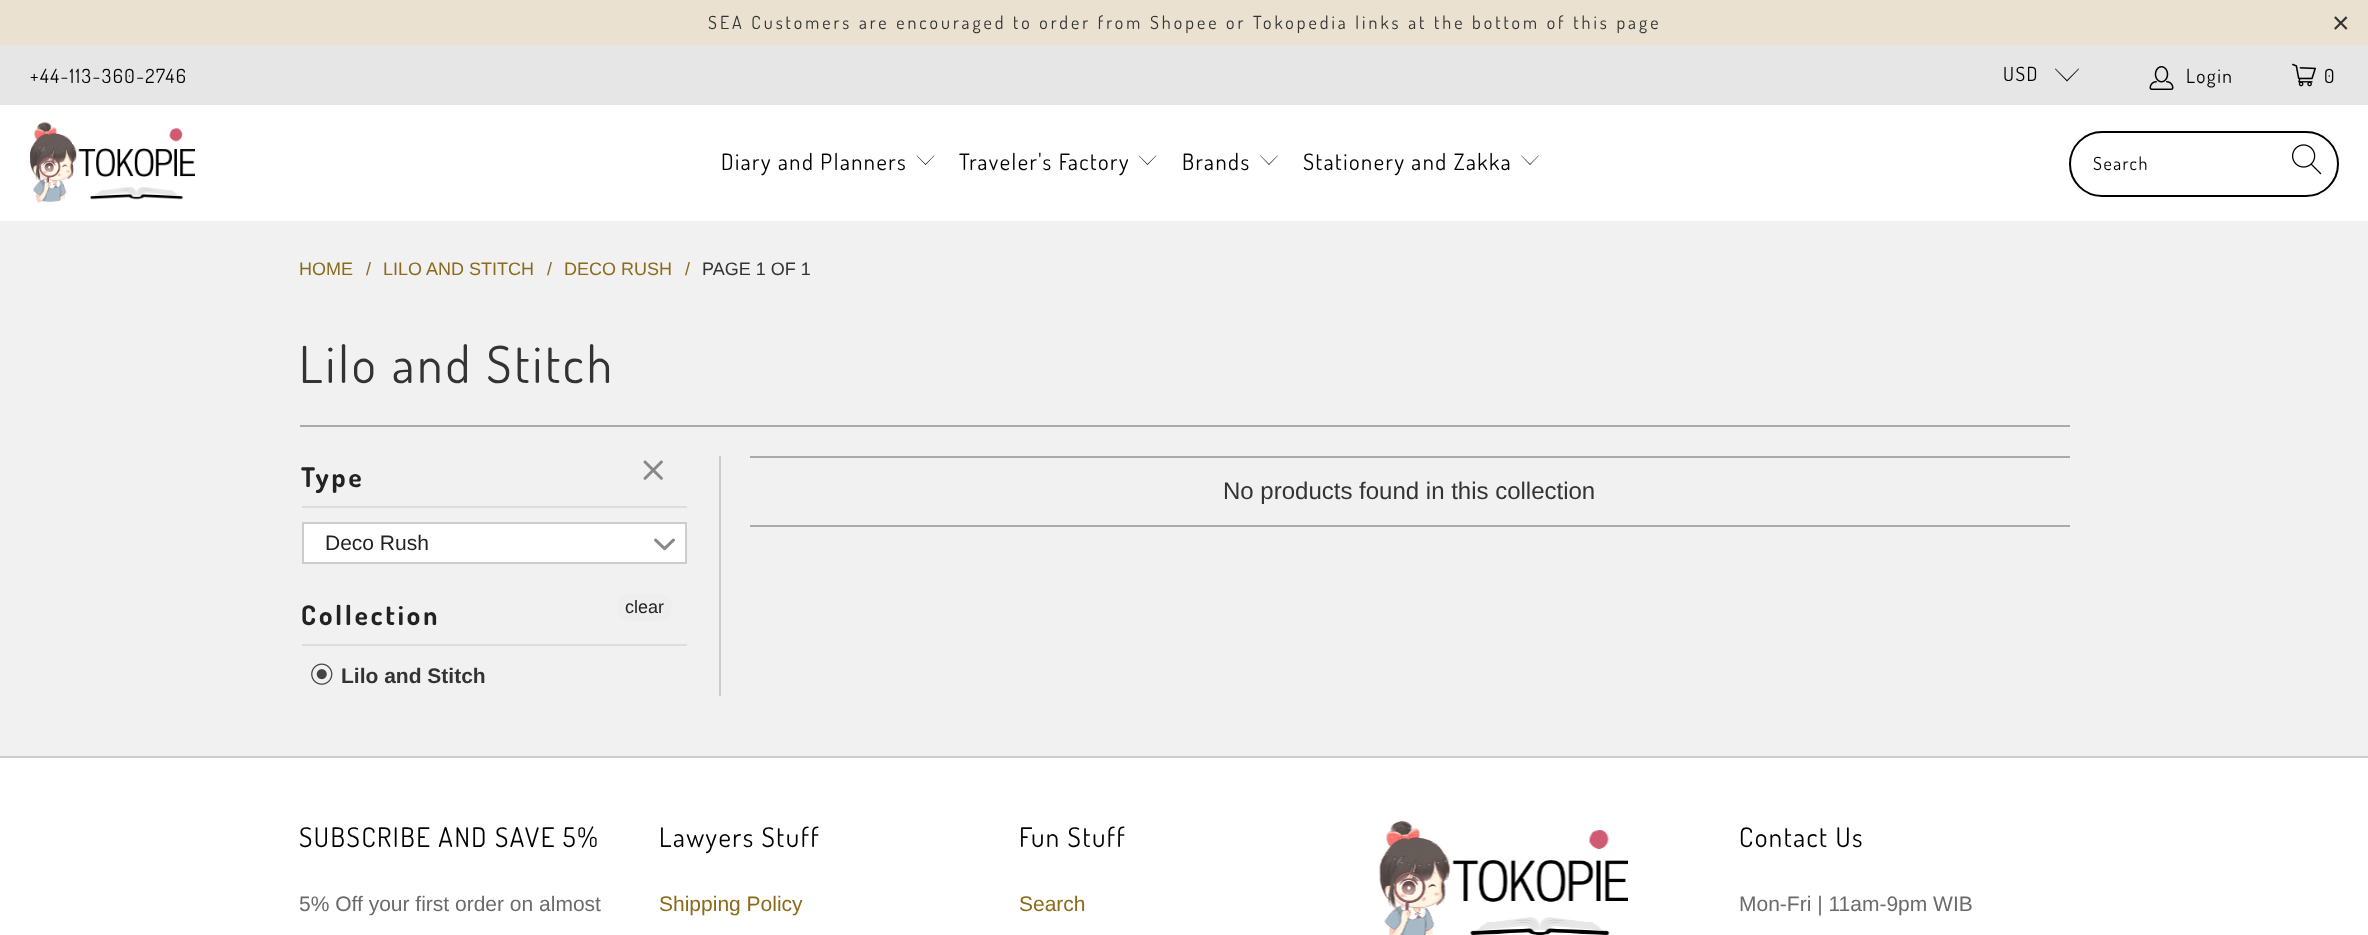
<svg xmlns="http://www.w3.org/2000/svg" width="2368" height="935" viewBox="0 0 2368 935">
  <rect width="100%" height="100%" fill="rgb(241,241,241)"/>
  <rect x="0" y="0" width="2368" height="45" fill="rgb(234,225,209)"/>
  <text x="708" y="29" font-family="Dosis" font-size="18" letter-spacing="3" fill="rgb(51,51,51)">SEA Customers are encouraged to order from Shopee or Tokopedia links at the bottom of this page</text>
  <text x="2332" y="33" font-family="Liberation Sans" font-size="30" letter-spacing="3" fill="rgb(51,51,51)">×</text>
  <rect x="0" y="45" width="2368" height="60" fill="rgb(230,230,230)"/>
  <g font-family="Dosis" font-size="19.5" letter-spacing="1.5" fill="rgb(0,0,0)">
    <text x="30" y="83">+44-113-360-2746</text>
    <text x="2003" y="81">USD</text>
  </g>
  <path d="M2067 81.5L2055 69L2055.5 68.5L2067 80L2078.5 68.5L2079 69Z" fill="rgb(0,0,0)"/>
  <image x="2149" y="66" width="25" height="24" href="pic1.png"/>
  <text x="2186" y="83" font-family="Dosis" font-size="19.5" letter-spacing="1.5" fill="rgb(0,0,0)">Login</text>
  <image x="2292" y="63" width="24" height="24" href="pic2.png"/>
  <text x="2324" y="83" font-family="Dosis" font-size="19.5" letter-spacing="1.5" fill="rgb(0,0,0)">0</text>
  <rect x="0" y="105" width="2368" height="116" fill="rgb(255,255,255)"/>
  <image x="30" y="122" width="165" height="81" href="pic3.png"/>
  <text x="721" y="170" font-family="Dosis" font-size="22.5" letter-spacing="1.5" fill="rgb(0,0,0)">Diary and Planners</text>
  <path d="M925.5 165L916.5 155.5H917L925.5 164L934 155.5H934.5Z" fill="rgb(0,0,0)"/>
  <text x="959" y="170" font-family="Dosis" font-size="22.5" letter-spacing="1.5" fill="rgb(0,0,0)">Traveler's Factory</text>
  <path d="M1147.5 165L1138.5 155.5H1139L1147.5 164L1156 155.5H1156.5Z" fill="rgb(0,0,0)"/>
  <text x="1182" y="170" font-family="Dosis" font-size="22.5" letter-spacing="1.5" fill="rgb(0,0,0)">Brands</text>
  <path d="M1269 165L1260 155.5H1260.5L1269 164L1277.5 155.5H1278Z" fill="rgb(0,0,0)"/>
  <text x="1303" y="170" font-family="Dosis" font-size="22.5" letter-spacing="1.5" fill="rgb(0,0,0)">Stationery and Zakka</text>
  <path d="M1530 165L1521 155.5H1521.5L1530 164L1538.5 155.5H1539Z" fill="rgb(0,0,0)"/>
  <rect x="2070" y="132" width="268" height="64" rx="32" fill="none" stroke="rgb(0,0,0)" stroke-width="2"/>
  <text x="2093" y="170" font-family="Dosis" font-size="18" letter-spacing="1.5" fill="rgb(0,0,0)">Search</text>
  <image x="2292" y="144" width="30" height="31" href="pic4.png"/>
  <g font-family="Liberation Sans" font-size="18" fill="rgb(139,106,27)">
    <text x="299" y="275">HOME</text>
    <text x="366" y="275">/</text>
    <text x="383" y="275">LILO AND STITCH</text>
    <text x="547" y="275">/</text>
    <text x="564" y="275">DECO RUSH</text>
    <text x="685" y="275">/</text>
  </g>
  <text x="702" y="275" font-family="Liberation Sans" font-size="18" fill="rgb(51,51,51)">PAGE 1 OF 1</text>
  <text x="299" y="383" font-family="Dosis" font-size="51" letter-spacing="3" fill="rgb(51,51,51)">Lilo and Stitch</text>
  <rect x="300" y="425" width="1770" height="2" fill="rgb(170,170,170)"/>
  <rect x="719" y="456" width="2" height="240" fill="rgb(204,204,204)"/>
  <rect x="302" y="506" width="385" height="2" fill="rgb(221,221,221)"/>
  <text x="301" y="487" font-family="Dosis" font-size="27" font-weight="bold" letter-spacing="3" fill="rgb(34,34,34)">Type</text>
  <image x="643" y="460" width="20" height="20" href="pic5.png"/>
  <rect x="303" y="523" width="383" height="40" fill="rgb(255,255,255)" stroke="rgb(204,204,204)" stroke-width="2"/>
  <text x="325" y="550" font-family="Liberation Sans" font-size="21" fill="rgb(34,34,34)">Deco Rush</text>
  <image x="654" y="538" width="21" height="13" href="pic6.png"/>
  <rect x="617" y="594" width="55" height="27" rx="13.5" fill="rgb(238,238,238)"/>
  <text x="625" y="613" font-family="Liberation Sans" font-size="18" fill="rgb(34,34,34)">clear</text>
  <image x="311" y="663" width="22" height="22" href="pic7.png"/>
  <text x="341" y="683" font-family="Liberation Sans" font-size="21" font-weight="bold" fill="rgb(51,51,51)">Lilo and Stitch</text>
  <rect x="302" y="644" width="385" height="2" fill="rgb(221,221,221)"/>
  <text x="301" y="625" font-family="Dosis" font-size="27" font-weight="bold" letter-spacing="3" fill="rgb(34,34,34)">Collection</text>
  <rect x="750" y="456" width="1320" height="2" fill="rgb(170,170,170)"/>
  <rect x="750" y="525" width="1320" height="2" fill="rgb(170,170,170)"/>
  <text x="1223" y="499" font-family="Liberation Sans" font-size="24" fill="rgb(51,51,51)">No products found in this collection</text>
  <rect x="0" y="758" width="2368" height="177" fill="rgb(255,255,255)"/>
  <rect x="0" y="756" width="2368" height="2" fill="rgb(204,204,204)"/>
  <text x="299" y="847" font-family="Dosis" font-size="27" letter-spacing="1.5" fill="rgb(0,0,0)">SUBSCRIBE AND SAVE 5%</text>
  <text x="299" y="911" font-family="Liberation Sans" font-size="21" fill="rgb(107,107,107)">5% Off your first order on almost</text>
  <text x="659" y="847" font-family="Dosis" font-size="27" letter-spacing="1.5" fill="rgb(0,0,0)">Lawyers Stuff</text>
  <text x="659" y="911" font-family="Liberation Sans" font-size="21" fill="rgb(139,106,27)">Shipping Policy</text>
  <text x="1019" y="847" font-family="Dosis" font-size="27" letter-spacing="1.5" fill="rgb(0,0,0)">Fun Stuff</text>
  <text x="1019" y="911" font-family="Liberation Sans" font-size="21" fill="rgb(139,106,27)">Search</text>
  <image x="1379" y="821" width="249" height="114" href="pic8.png"/>
  <text x="1739" y="847" font-family="Dosis" font-size="27" letter-spacing="1.5" fill="rgb(0,0,0)">Contact Us</text>
  <text x="1739" y="911" font-family="Liberation Sans" font-size="21" fill="rgb(107,107,107)">Mon-Fri | 11am-9pm WIB</text>
</svg>
